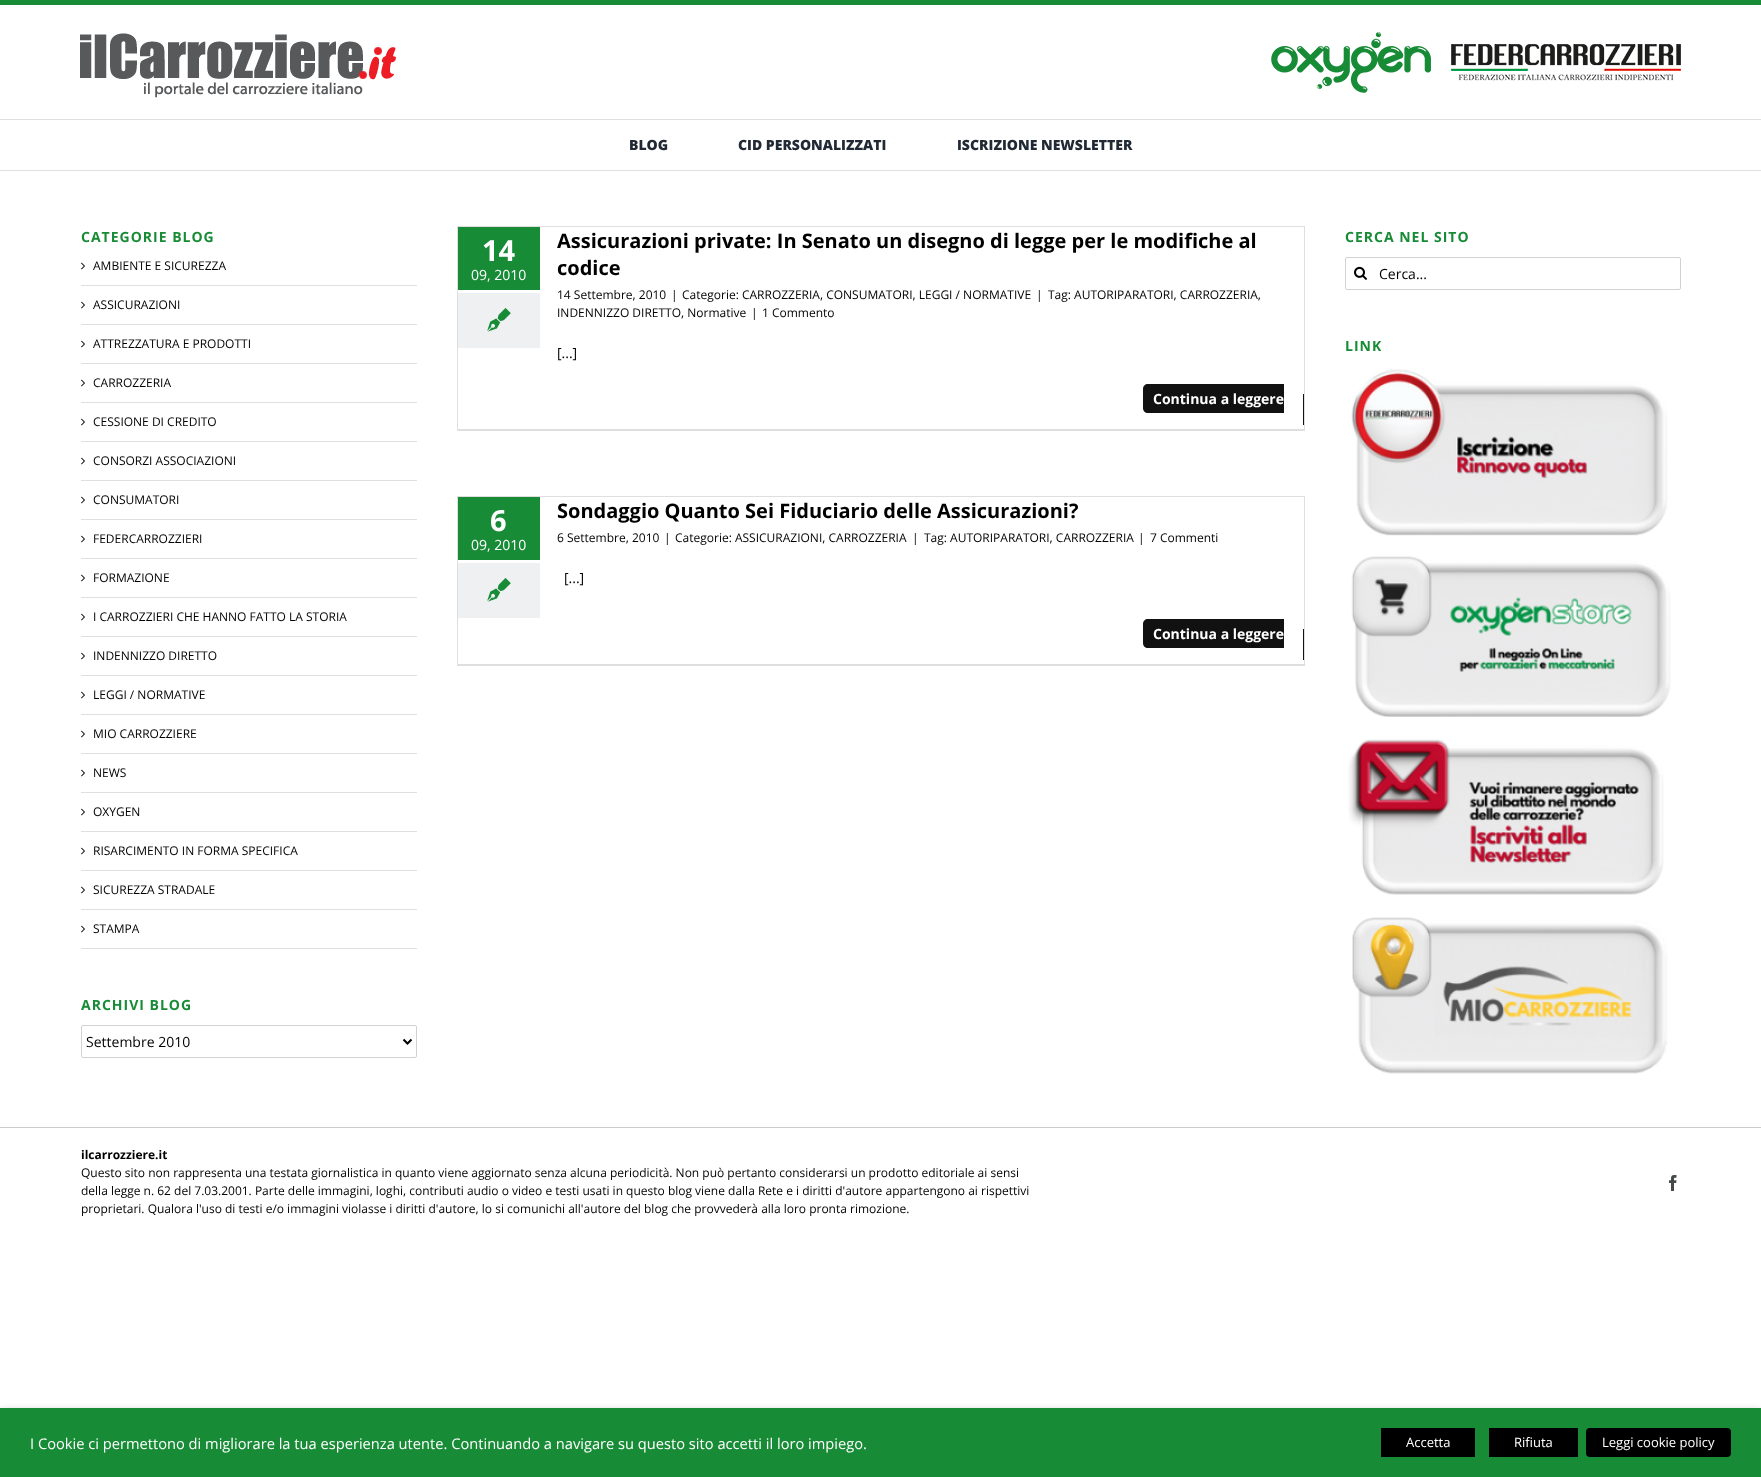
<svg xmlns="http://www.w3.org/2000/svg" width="1761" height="1477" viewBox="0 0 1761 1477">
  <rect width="100%" height="100%" fill="rgb(255,255,255)"/>
  <rect x="0" y="0" width="1761" height="5" fill="rgb(24,139,55)"/>
  <image x="80" y="33" width="316" height="65" href="pic1.png"/>
  <image x="1271" y="32" width="160" height="61" href="pic2.png"/>
  <image x="1451" y="44" width="230" height="37" href="pic3.png"/>
  <rect x="0" y="119" width="1761" height="1" fill="rgb(224,222,222)"/>
  <rect x="0" y="170" width="1761" height="1" fill="rgb(224,222,222)"/>
  <g font-family="Open Sans" font-size="14" font-weight="800" fill="rgb(33,41,52)">
    <text x="629" y="150">BLOG</text>
    <text x="738" y="150">CID PERSONALIZZATI</text>
    <text x="957" y="150">ISCRIZIONE NEWSLETTER</text>
  </g>
  <text x="81" y="242" font-family="Open Sans" font-size="14" font-weight="bold" letter-spacing="1" fill="rgb(24,139,55)">CATEGORIE BLOG</text>
  <rect x="81" y="285" width="336" height="1" fill="rgb(224,222,222)"/>
  <image x="81" y="262" width="4" height="8" href="pic4.png"/>
  <text x="93" y="270" font-family="Open Sans" font-size="12" fill="rgb(0,0,0)">AMBIENTE E SICUREZZA</text>
  <rect x="81" y="324" width="336" height="1" fill="rgb(224,222,222)"/>
  <image x="81" y="301" width="4" height="8" href="pic4.png"/>
  <text x="93" y="309" font-family="Open Sans" font-size="12" fill="rgb(0,0,0)">ASSICURAZIONI</text>
  <rect x="81" y="363" width="336" height="1" fill="rgb(224,222,222)"/>
  <image x="81" y="340" width="4" height="8" href="pic4.png"/>
  <text x="93" y="348" font-family="Open Sans" font-size="12" fill="rgb(0,0,0)">ATTREZZATURA E PRODOTTI</text>
  <rect x="81" y="402" width="336" height="1" fill="rgb(224,222,222)"/>
  <image x="81" y="379" width="4" height="8" href="pic4.png"/>
  <text x="93" y="387" font-family="Open Sans" font-size="12" fill="rgb(0,0,0)">CARROZZERIA</text>
  <rect x="81" y="441" width="336" height="1" fill="rgb(224,222,222)"/>
  <image x="81" y="418" width="4" height="8" href="pic4.png"/>
  <text x="93" y="426" font-family="Open Sans" font-size="12" fill="rgb(0,0,0)">CESSIONE DI CREDITO</text>
  <rect x="81" y="480" width="336" height="1" fill="rgb(224,222,222)"/>
  <image x="81" y="457" width="4" height="8" href="pic4.png"/>
  <text x="93" y="465" font-family="Open Sans" font-size="12" fill="rgb(0,0,0)">CONSORZI ASSOCIAZIONI</text>
  <rect x="81" y="519" width="336" height="1" fill="rgb(224,222,222)"/>
  <image x="81" y="496" width="4" height="8" href="pic4.png"/>
  <text x="93" y="504" font-family="Open Sans" font-size="12" fill="rgb(0,0,0)">CONSUMATORI</text>
  <rect x="81" y="558" width="336" height="1" fill="rgb(224,222,222)"/>
  <image x="81" y="535" width="4" height="8" href="pic4.png"/>
  <text x="93" y="543" font-family="Open Sans" font-size="12" fill="rgb(0,0,0)">FEDERCARROZZIERI</text>
  <rect x="81" y="597" width="336" height="1" fill="rgb(224,222,222)"/>
  <image x="81" y="574" width="4" height="8" href="pic4.png"/>
  <text x="93" y="582" font-family="Open Sans" font-size="12" fill="rgb(0,0,0)">FORMAZIONE</text>
  <rect x="81" y="636" width="336" height="1" fill="rgb(224,222,222)"/>
  <image x="81" y="613" width="4" height="8" href="pic4.png"/>
  <text x="93" y="621" font-family="Open Sans" font-size="12" fill="rgb(0,0,0)">I CARROZZIERI CHE HANNO FATTO LA STORIA</text>
  <rect x="81" y="675" width="336" height="1" fill="rgb(224,222,222)"/>
  <image x="81" y="652" width="4" height="8" href="pic4.png"/>
  <text x="93" y="660" font-family="Open Sans" font-size="12" fill="rgb(0,0,0)">INDENNIZZO DIRETTO</text>
  <rect x="81" y="714" width="336" height="1" fill="rgb(224,222,222)"/>
  <image x="81" y="691" width="4" height="8" href="pic4.png"/>
  <text x="93" y="699" font-family="Open Sans" font-size="12" fill="rgb(0,0,0)">LEGGI / NORMATIVE</text>
  <rect x="81" y="753" width="336" height="1" fill="rgb(224,222,222)"/>
  <image x="81" y="730" width="4" height="8" href="pic4.png"/>
  <text x="93" y="738" font-family="Open Sans" font-size="12" fill="rgb(0,0,0)">MIO CARROZZIERE</text>
  <rect x="81" y="792" width="336" height="1" fill="rgb(224,222,222)"/>
  <image x="81" y="769" width="4" height="8" href="pic4.png"/>
  <text x="93" y="777" font-family="Open Sans" font-size="12" fill="rgb(0,0,0)">NEWS</text>
  <rect x="81" y="831" width="336" height="1" fill="rgb(224,222,222)"/>
  <image x="81" y="808" width="4" height="8" href="pic4.png"/>
  <text x="93" y="816" font-family="Open Sans" font-size="12" fill="rgb(0,0,0)">OXYGEN</text>
  <rect x="81" y="870" width="336" height="1" fill="rgb(224,222,222)"/>
  <image x="81" y="847" width="4" height="8" href="pic4.png"/>
  <text x="93" y="855" font-family="Open Sans" font-size="12" fill="rgb(0,0,0)">RISARCIMENTO IN FORMA SPECIFICA</text>
  <rect x="81" y="909" width="336" height="1" fill="rgb(224,222,222)"/>
  <image x="81" y="886" width="4" height="8" href="pic4.png"/>
  <text x="93" y="894" font-family="Open Sans" font-size="12" fill="rgb(0,0,0)">SICUREZZA STRADALE</text>
  <rect x="81" y="948" width="336" height="1" fill="rgb(224,222,222)"/>
  <image x="81" y="925" width="4" height="8" href="pic4.png"/>
  <text x="93" y="933" font-family="Open Sans" font-size="12" fill="rgb(0,0,0)">STAMPA</text>
  <text x="81" y="1010" font-family="Open Sans" font-size="14" font-weight="bold" letter-spacing="1" fill="rgb(24,139,55)">ARCHIVI BLOG</text>
  <rect x="81.5" y="1025.5" width="335" height="32" rx="1.5" fill="none" stroke="rgb(210,210,210)"/>
  <path d="M403.5 1039.5L407.5 1043.5L411.5 1039.5" fill="none" stroke="rgb(0,0,0)" stroke-width="2"/>
  <text x="86" y="1047" font-family="Open Sans" font-size="14" fill="rgb(0,0,0)">Settembre 2010</text>
  <rect x="457.5" y="226.5" width="847" height="204" fill="none" stroke="rgb(224,222,222)"/>
  <rect x="458" y="227" width="82" height="63" fill="rgb(24,139,55)"/>
  <text x="482" y="261" font-family="Open Sans" font-size="29" font-weight="bold" fill="rgb(255,255,255)">14</text>
  <text x="471" y="280" font-family="Open Sans" font-size="14" fill="rgb(255,255,255)">09, 2010</text>
  <rect x="458" y="293" width="82" height="55" fill="rgb(238,240,242)"/>
  <image x="487" y="308" width="24" height="24" href="pic5.png"/>
  <g font-family="Open Sans" font-size="20" font-weight="bold" fill="rgb(0,0,0)">
    <text>
      <tspan x="557" y="248">Assicurazioni private: In Senato un disegno di legge per le modifiche al</tspan>
      <tspan x="557" y="275">codice</tspan>
    </text>
  </g>
  <g font-family="Open Sans" font-size="12" fill="rgb(0,0,0)">
    <text x="557" y="299">14 Settembre, 2010</text>
    <text x="671" y="299">|</text>
    <text x="682" y="299">Categorie: CARROZZERIA, CONSUMATORI, LEGGI / NORMATIVE</text>
    <text x="1036" y="299">|</text>
    <text x="1048" y="299">Tag: AUTORIPARATORI, CARROZZERIA,</text>
    <text x="557" y="317">INDENNIZZO DIRETTO, Normative</text>
    <text x="751" y="317">|</text>
    <text x="762" y="317">1 Commento</text>
  </g>
  <text x="557" y="358" font-family="Open Sans" font-size="14" fill="rgb(0,0,0)">[...]</text>
  <rect x="458" y="429" width="846" height="1" fill="rgb(224,222,222)"/>
  <path d="M1148 384H1284V413H1148C1145 413 1143 411 1143 408V389C1143 386 1145 384 1148 384Z" fill="rgb(17,17,17)"/>
  <text x="1153" y="404" font-family="Open Sans" font-size="14" font-weight="bold" fill="rgb(255,255,255)">Continua a leggere</text>
  <rect x="1303" y="394" width="1" height="31" fill="rgb(17,17,17)"/>
  <rect x="457.5" y="496.5" width="847" height="169" fill="none" stroke="rgb(224,222,222)"/>
  <rect x="458" y="497" width="82" height="63" fill="rgb(24,139,55)"/>
  <text x="490" y="531" font-family="Open Sans" font-size="29" font-weight="bold" fill="rgb(255,255,255)">6</text>
  <text x="471" y="550" font-family="Open Sans" font-size="14" fill="rgb(255,255,255)">09, 2010</text>
  <rect x="458" y="563" width="82" height="55" fill="rgb(238,240,242)"/>
  <image x="487" y="578" width="24" height="24" href="pic5.png"/>
  <text x="557" y="518" font-family="Open Sans" font-size="20" font-weight="bold" fill="rgb(0,0,0)">Sondaggio Quanto Sei Fiduciario delle Assicurazioni?</text>
  <g font-family="Open Sans" font-size="12" fill="rgb(0,0,0)">
    <text x="557" y="542">6 Settembre, 2010</text>
    <text x="664" y="542">|</text>
    <text x="675" y="542">Categorie: ASSICURAZIONI, CARROZZERIA</text>
    <text x="912" y="542">|</text>
    <text x="924" y="542">Tag: AUTORIPARATORI, CARROZZERIA</text>
    <text x="1138" y="542">|</text>
    <text x="1150" y="542">7 Commenti</text>
  </g>
  <text x="564" y="583" font-family="Open Sans" font-size="14" fill="rgb(0,0,0)">[...]</text>
  <rect x="458" y="664" width="846" height="1" fill="rgb(224,222,222)"/>
  <path d="M1148 619H1284V648H1148C1145 648 1143 646 1143 643V624C1143 621 1145 619 1148 619Z" fill="rgb(17,17,17)"/>
  <text x="1153" y="639" font-family="Open Sans" font-size="14" font-weight="bold" fill="rgb(255,255,255)">Continua a leggere</text>
  <rect x="1303" y="629" width="1" height="31" fill="rgb(17,17,17)"/>
  <text x="1345" y="242" font-family="Open Sans" font-size="14" font-weight="bold" letter-spacing="1" fill="rgb(24,139,55)">CERCA NEL SITO</text>
  <rect x="1345.5" y="257.5" width="335" height="32" rx="1.5" fill="none" stroke="rgb(210,210,210)"/>
  <image x="1354" y="266" width="13" height="14" href="pic6.png"/>
  <text x="1379" y="279" font-family="Open Sans" font-size="14" fill="rgb(0,0,0)">Cerca...</text>
  <text x="1345" y="351" font-family="Open Sans" font-size="14" font-weight="bold" letter-spacing="1" fill="rgb(24,139,55)">LINK</text>
  <image x="1351" y="369" width="317" height="167" href="pic7.png"/>
  <image x="1351" y="556" width="320" height="161" href="pic8.png"/>
  <image x="1348" y="739" width="316" height="156" href="pic9.png"/>
  <image x="1352" y="917" width="316" height="157" href="pic10.png"/>
  <rect x="0" y="1127" width="1761" height="1" fill="rgb(204,204,204)"/>
  <text x="81" y="1159" font-family="Open Sans" font-size="12" font-weight="bold" fill="rgb(0,0,0)">ilcarrozziere.it</text>
  <g font-family="Open Sans" font-size="12" fill="rgb(0,0,0)">
    <text>
      <tspan x="81" y="1177">Questo sito non rappresenta una testata giornalistica in quanto viene aggiornato senza alcuna periodicità. Non può pertanto considerarsi un prodotto editoriale ai sensi</tspan>
      <tspan x="81" y="1195">della legge n. 62 del 7.03.2001. Parte delle immagini, loghi, contributi audio o video e testi usati in questo blog viene dalla Rete e i diritti d'autore appartengono ai rispettivi</tspan>
      <tspan x="81" y="1213">proprietari. Qualora l'uso di testi e/o immagini violasse i diritti d'autore, lo si comunichi all'autore del blog che provvederà alla loro pronta rimozione.</tspan>
    </text>
  </g>
  <image x="1669" y="1175" width="8" height="16" href="pic11.png"/>
  <rect x="0" y="1413" width="1761" height="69" fill="rgba(0,0,0,0.5)" filter="blur(5px)"/>
  <rect x="0" y="1408" width="1761" height="69" fill="rgb(24,139,55)"/>
  <text x="30" y="1449" font-family="Open Sans" font-size="14.67" fill="rgb(255,255,255)">I Cookie ci permettono di migliorare la tua esperienza utente. Continuando a navigare su questo sito accetti il loro impiego.</text>
  <rect x="1381" y="1428" width="94" height="29" fill="rgb(0,0,0)"/>
  <text x="1406" y="1447" font-family="Open Sans" font-size="13" fill="rgb(255,255,255)">Accetta</text>
  <rect x="1489" y="1428" width="89" height="29" fill="rgb(0,0,0)"/>
  <text x="1514" y="1447" font-family="Open Sans" font-size="13" fill="rgb(255,255,255)">Rifiuta</text>
  <rect x="1586" y="1428" width="145" height="29" rx="4" fill="rgb(0,0,0)"/>
  <text x="1602" y="1447" font-family="Open Sans" font-size="13" fill="rgb(255,255,255)">Leggi cookie policy</text>
</svg>
